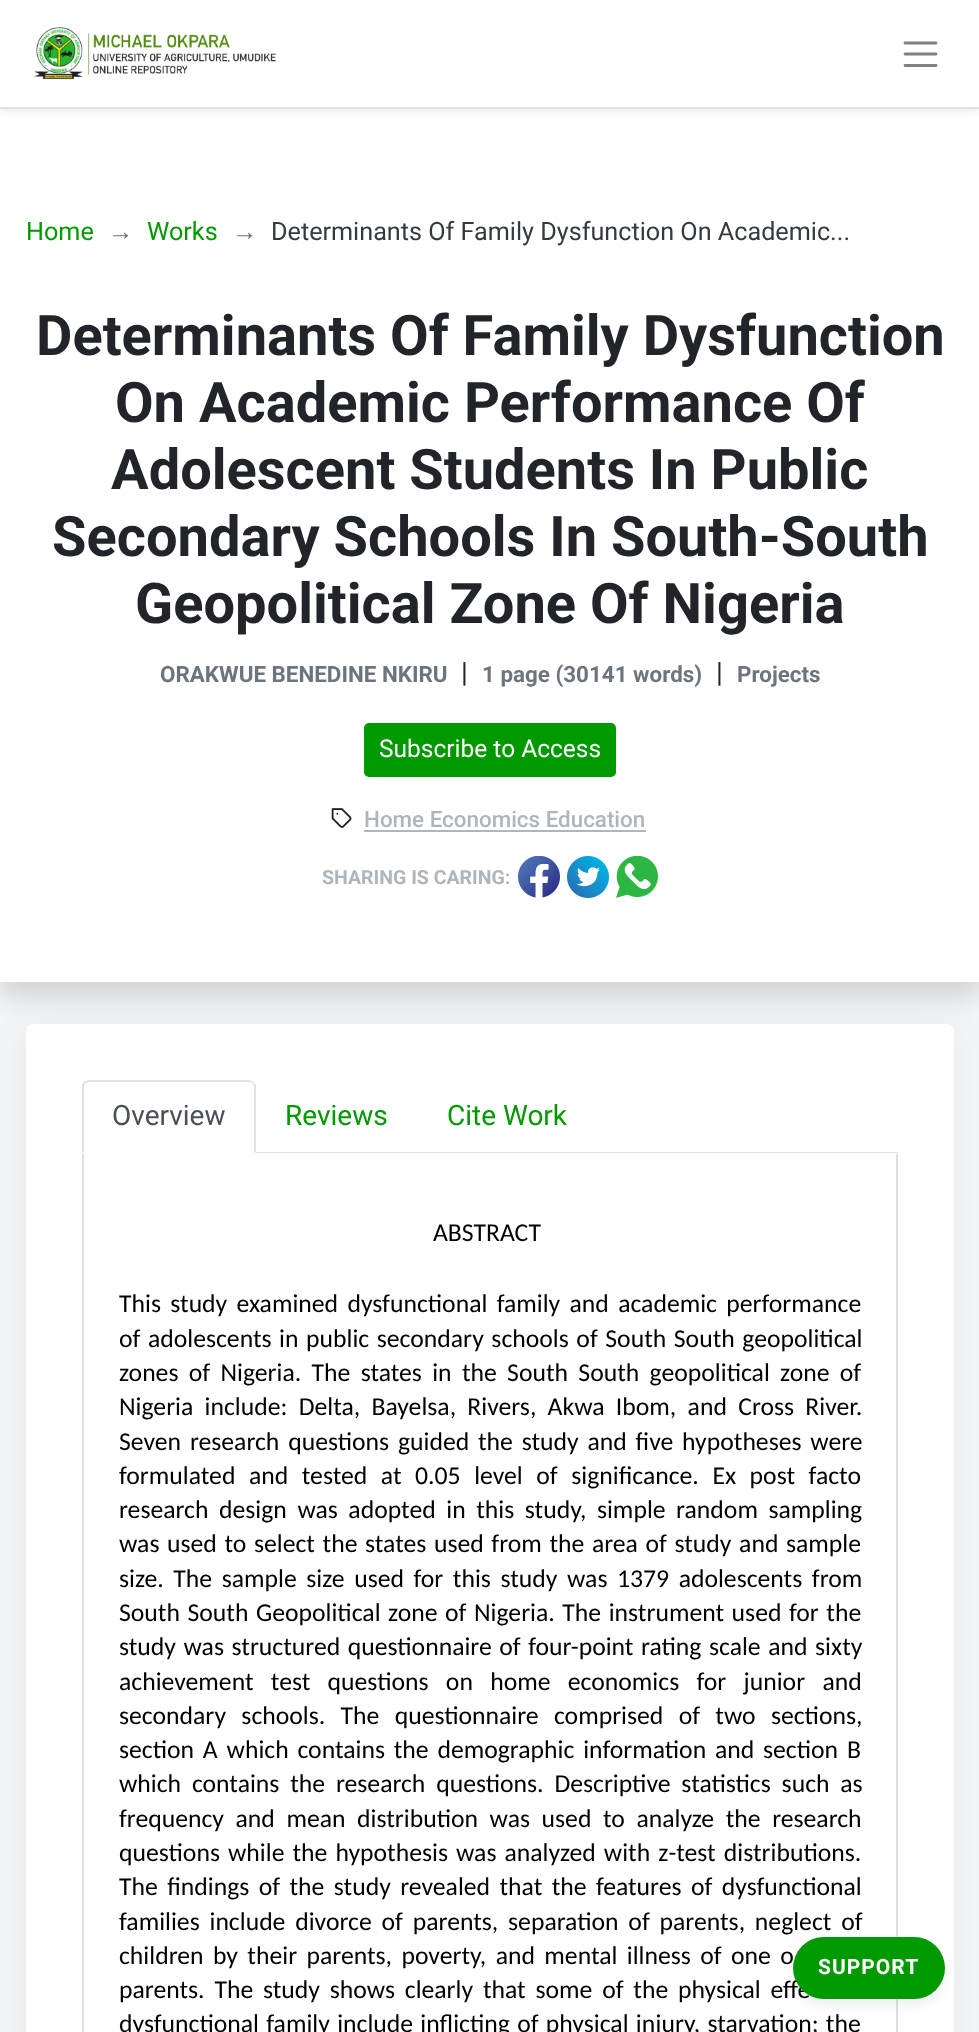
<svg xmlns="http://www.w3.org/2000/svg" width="979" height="2032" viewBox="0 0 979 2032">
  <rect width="100%" height="100%" fill="rgb(244,245,246)"/>
  <rect x="0" y="123" width="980" height="873" fill="rgba(0,0,0,0.15)" filter="blur(14px)"/>
  <rect x="0" y="109" width="979" height="873" fill="rgb(255,255,255)"/>
  <rect x="0" y="2" width="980" height="108" fill="rgba(0,0,0,0.1)" filter="blur(4.5px)"/>
  <rect x="0" y="0" width="979" height="107" fill="rgb(255,255,255)"/>
  <rect x="0" y="107" width="979" height="2" fill="rgb(222,226,230)"/>
  <image x="34" y="27" width="242" height="53" href="pic1.png"/>
  <path d="M905 43H936M905 54H936M905 65.5H936" fill="none" stroke="rgb(128,128,128)" stroke-width="2.8" stroke-linecap="round"/>
  <text x="26" y="240" font-family="Roboto" font-size="25.2" fill="rgb(0,153,0)">Home</text>
  <text x="108" y="240" font-family="Liberation Sans" font-size="25.2" fill="rgb(108,117,125)">→</text>
  <text x="147" y="240" font-family="Roboto" font-size="25.2" fill="rgb(0,153,0)">Works</text>
  <text x="232" y="240" font-family="Liberation Sans" font-size="25.2" fill="rgb(108,117,125)">→</text>
  <text x="271" y="240" font-family="Roboto" font-size="25.2" fill="rgb(52,58,64)">Determinants Of Family Dysfunction On Academic...</text>
  <g font-family="Roboto" font-size="56" font-weight="bold" fill="rgb(33,37,41)">
    <text x="36" y="355">Determinants Of Family Dysfunction</text>
    <text x="115" y="422">On Academic Performance Of</text>
    <text x="111" y="489">Adolescent Students In Public</text>
    <text x="52" y="556">Secondary Schools In South-South</text>
    <text x="135" y="623">Geopolitical Zone Of Nigeria</text>
  </g>
  <text x="160" y="682" font-family="Roboto" font-size="22.4" font-weight="bold" fill="rgb(108,117,125)">ORAKWUE BENEDINE NKIRU</text>
  <text x="461" y="682" font-family="Roboto" font-size="28" fill="rgb(33,37,41)">|</text>
  <text x="482" y="682" font-family="Roboto" font-size="22.4" font-weight="bold" fill="rgb(108,117,125)">1 page (30141 words)</text>
  <text x="716" y="682" font-family="Roboto" font-size="28" fill="rgb(33,37,41)">|</text>
  <text x="737" y="682" font-family="Roboto" font-size="22.4" font-weight="bold" fill="rgb(108,117,125)">Projects</text>
  <rect x="365" y="724" width="250" height="52" rx="4" fill="rgb(0,153,0)" stroke="rgb(0,153,0)" stroke-width="2"/>
  <text x="379" y="757" font-family="Roboto" font-size="24.5" fill="rgb(255,255,255)">Subscribe to Access</text>
  <image x="331" y="808" width="21" height="20" href="pic2.png"/>
  <text x="364" y="827" font-family="Roboto" font-size="22.4" font-weight="500" fill="rgb(173,181,189)">Home Economics Education</text>
  <rect x="364" y="830" width="282" height="2" fill="rgb(173,181,189)"/>
  <text x="322" y="884" font-family="Roboto" font-size="19.5" font-weight="bold" fill="rgb(173,181,189)">SHARING IS CARING:</text>
  <image x="518" y="856" width="42" height="42" href="pic3.png"/>
  <image x="567" y="856" width="42" height="42" href="pic4.png"/>
  <image x="616" y="856" width="42" height="42" href="pic5.png"/>
  <rect x="26" y="1024" width="928" height="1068" rx="7" fill="rgba(0,0,0,0.05)" filter="blur(17.5px)"/>
  <rect x="26" y="1024" width="928" height="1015" rx="7" fill="rgb(255,255,255)"/>
  <rect x="256" y="1152" width="642" height="1" fill="rgb(222,226,230)"/>
  <path d="M89 1080C87 1080 85 1081 84 1082L86 1083C86 1082 88 1082 89 1082H248C249 1082 251 1082 252 1083L253 1082C252 1081 250 1080 248 1080Z" fill="rgb(222,226,230)"/>
  <path d="M253 1082L256 1085V1153L254 1152V1086L252 1083Z" fill="rgb(222,226,230)"/>
  <path d="M255 1153H82L84 1152H254Z" fill="rgb(255,255,255)"/>
  <path d="M82 1085L84 1082L86 1083L84 1086V1152L82 1153Z" fill="rgb(222,226,230)"/>
  <text x="112" y="1125" font-family="Roboto" font-size="28" fill="rgb(73,80,87)">Overview</text>
  <g font-family="Roboto" font-size="28" fill="rgb(0,153,0)">
    <text x="285" y="1125">Reviews</text>
    <text x="447" y="1125">Cite Work</text>
  </g>
  <path d="M898 1153V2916L896 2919L895 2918C896 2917 896 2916 896 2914V1155Z" fill="rgb(221,221,221)"/>
  <path d="M84 1155V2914C84 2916 84 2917 85 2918L84 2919L82 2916V1153Z" fill="rgb(221,221,221)"/>
  <g font-family="Carlito" font-size="25.7" fill="rgb(0,0,0)">
    <text x="433" y="1241">ABSTRACT</text>
    <text>
      <tspan x="119" y="1312" word-spacing="3.5">This study examined dysfunctional family and academic performance</tspan>
      <tspan x="119" y="1347" word-spacing="1.75">of adolescents in public secondary schools of South South geopolitical</tspan>
      <tspan x="119" y="1381" word-spacing="4.5">zones of Nigeria. The states in the South South geopolitical zone of</tspan>
      <tspan x="119" y="1415" word-spacing="5.5">Nigeria include: Delta, Bayelsa, Rivers, Akwa Ibom, and Cross River.</tspan>
      <tspan x="119" y="1450" word-spacing="3">Seven research questions guided the study and five hypotheses were</tspan>
      <tspan x="119" y="1484" word-spacing="7.75">formulated and tested at 0.05 level of significance. Ex post facto</tspan>
      <tspan x="119" y="1518" word-spacing="4.75">research design was adopted in this study, simple random sampling</tspan>
      <tspan x="119" y="1552" word-spacing="1.8">was used to select the states used from the area of study and sample</tspan>
      <tspan x="119" y="1587" word-spacing="3.75">size. The sample size used for this study was 1379 adolescents from</tspan>
      <tspan x="119" y="1621" word-spacing="1.75">South South Geopolitical zone of Nigeria. The instrument used for the</tspan>
      <tspan x="119" y="1655" word-spacing="1.75">study was structured questionnaire of four-point rating scale and sixty</tspan>
      <tspan x="119" y="1690" word-spacing="11.5">achievement test questions on home economics for junior and</tspan>
      <tspan x="119" y="1724" word-spacing="9.5">secondary schools. The questionnaire comprised of two sections,</tspan>
      <tspan x="119" y="1758" word-spacing="3">section A which contains the demographic information and section B</tspan>
      <tspan x="119" y="1792" word-spacing="5">which contains the research questions. Descriptive statistics such as</tspan>
      <tspan x="119" y="1827" word-spacing="5.75">frequency and mean distribution was used to analyze the research</tspan>
      <tspan x="119" y="1861" word-spacing="2.25">questions while the hypothesis was analyzed with z-test distributions.</tspan>
      <tspan x="119" y="1895" word-spacing="3.6">The findings of the study revealed that the features of dysfunctional</tspan>
      <tspan x="119" y="1930" word-spacing="4">families include divorce of parents, separation of parents, neglect of</tspan>
      <tspan x="119" y="1964" word-spacing="3.6">children by their parents, poverty, and mental illness of one o</tspan>
      <tspan x="119" y="1998" word-spacing="4">parents. The study shows clearly that some of the physical effe</tspan>
      <tspan x="119" y="2032" word-spacing="1.5">dysfunctional family include inflicting of physical injury, starvation; the</tspan>
    </text>
  </g>
  <rect x="793" y="1946" width="152" height="61" rx="30.5" fill="rgba(0,0,0,0.05)" filter="blur(5px)"/>
  <rect x="793" y="1937" width="152" height="62" rx="31" fill="rgb(0,153,0)"/>
  <text x="818" y="1974" font-family="Roboto" font-size="21" font-weight="bold" letter-spacing="1" fill="rgb(255,255,255)">SUPPORT</text>
</svg>
